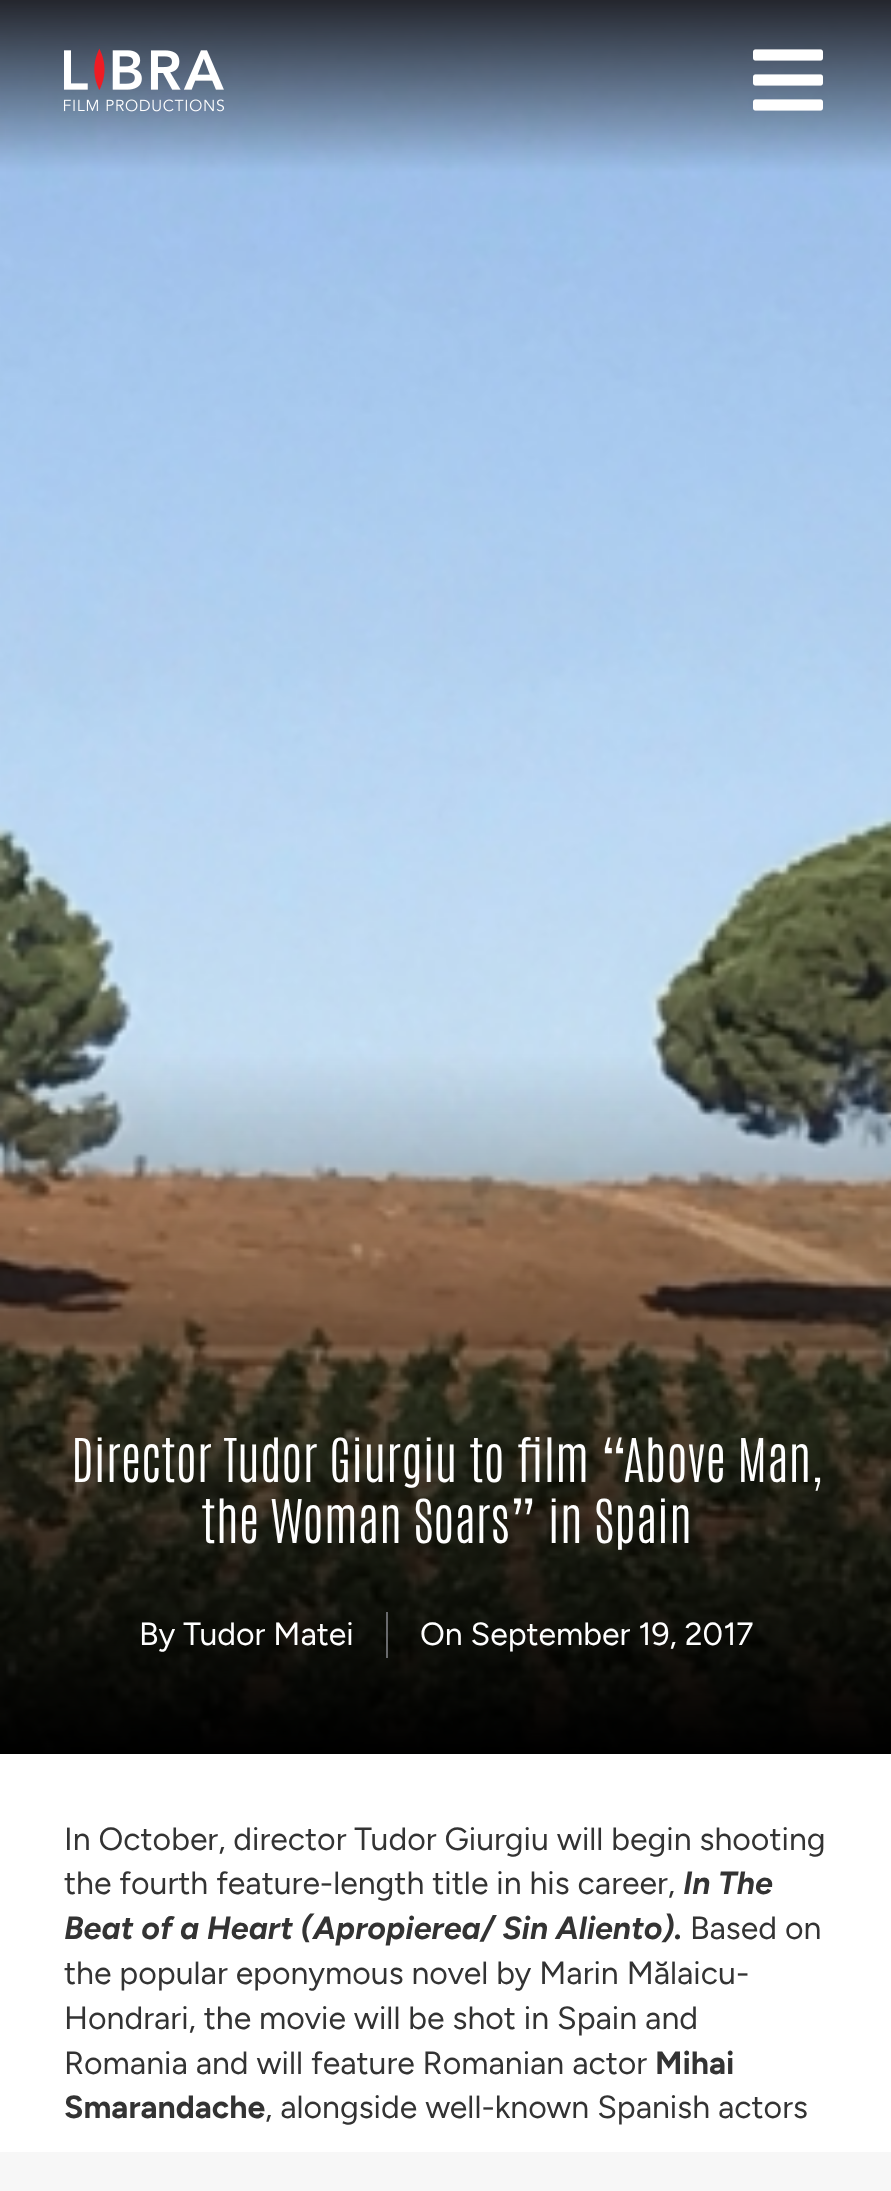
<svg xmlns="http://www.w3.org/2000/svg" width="891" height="2191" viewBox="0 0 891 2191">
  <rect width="100%" height="100%" fill="rgb(255,255,255)"/>
  <image x="0" y="0" width="891" height="1754" href="pic3.png"/>
  <image x="64" y="48" width="160" height="64" href="pic1.png"/>
  <image x="753" y="49" width="70" height="62" href="pic2.png"/>
  <g font-family="Antonio" font-size="51.25" font-weight="100" fill="rgb(255,255,255)">
    <text x="71" y="1482">Director Tudor Giurgiu to film “Above Man,</text>
    <text x="201" y="1543">the Woman Soars” in Spain</text>
  </g>
  <text x="139" y="1645" font-family="Figtree" font-size="32" fill="rgb(255,255,255)">By Tudor Matei</text>
  <rect x="386" y="1612" width="2" height="46" fill="rgb(104,105,108)"/>
  <text x="420" y="1645" font-family="Figtree" font-size="32" fill="rgb(255,255,255)">On September 19, 2017</text>
  <g font-family="Figtree" font-size="32" fill="rgb(51,51,51)">
    <text>
      <tspan x="64" y="1850">In October, director Tudor Giurgiu will begin shooting</tspan>
      <tspan x="64" y="1894">the fourth feature-length title in his career,</tspan>
    </text>
  </g>
  <g font-family="Figtree" font-size="32" font-weight="bold" font-style="italic" fill="rgb(51,51,51)">
    <text x="683" y="1894">In The</text>
    <text x="64" y="1939">Beat of a Heart (Apropierea/ Sin Aliento).</text>
  </g>
  <g font-family="Figtree" font-size="32" fill="rgb(51,51,51)">
    <text x="690" y="1939">Based on</text>
    <text>
      <tspan x="64" y="1984">the popular eponymous novel by Marin Mălaicu-</tspan>
      <tspan x="64" y="2029">Hondrari, the movie will be shot in Spain and</tspan>
      <tspan x="64" y="2074">Romania and will feature Romanian actor</tspan>
    </text>
  </g>
  <g font-family="Figtree" font-size="32" font-weight="bold" fill="rgb(51,51,51)">
    <text x="655" y="2074">Mihai</text>
    <text x="64" y="2118">Smarandache</text>
  </g>
  <text x="265" y="2118" font-family="Figtree" font-size="32" fill="rgb(51,51,51)">, alongside well-known Spanish actors</text>
  <rect x="0" y="2152" width="891" height="39" fill="rgb(247,247,247)"/>
</svg>
